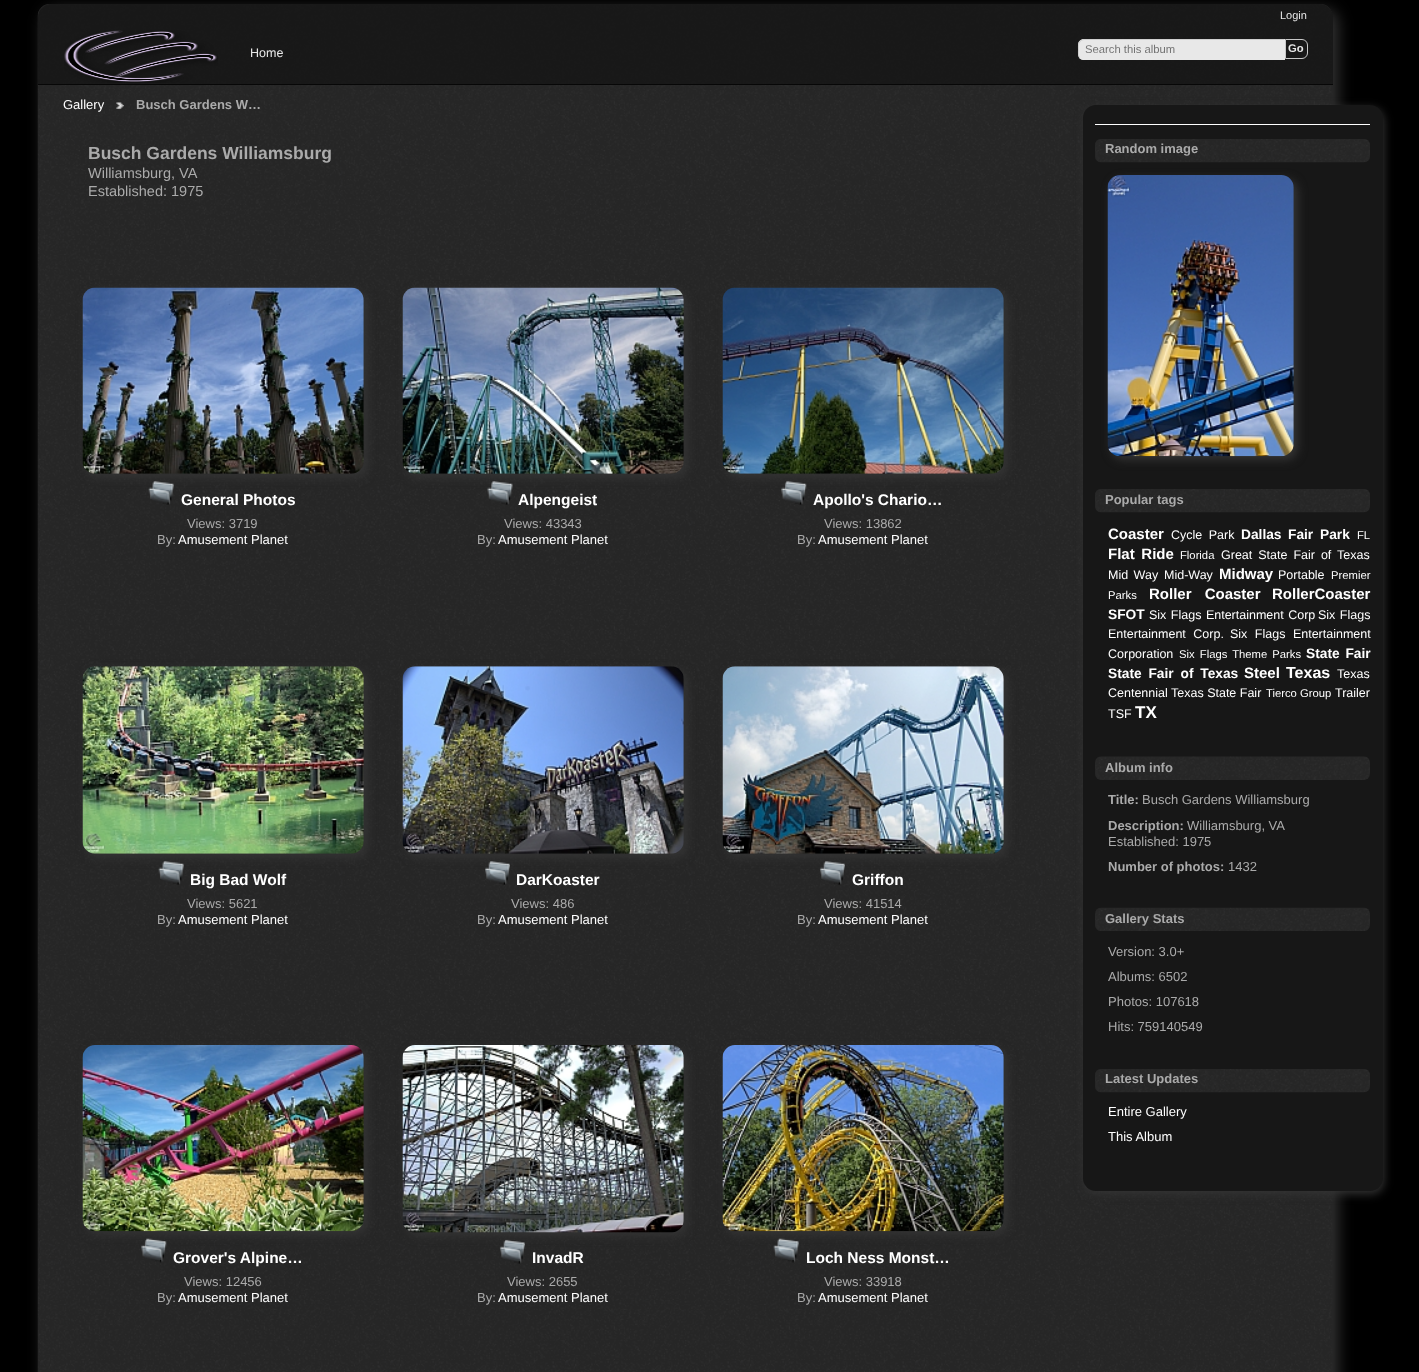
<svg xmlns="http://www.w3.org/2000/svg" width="1419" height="1372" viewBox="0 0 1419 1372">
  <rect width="100%" height="100%" fill="rgb(0,0,0)"/>
  <rect x="43" y="9" width="1295" height="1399" rx="13" fill="rgb(51,51,51)" filter="blur(7.5px)"/>
  <image x="37" y="4" width="1296" height="1368" href="pic1.png"/>
  <path d="M51 4H1320C1327 4 1333 10 1333 17V85H38V17C38 10 44 4 51 4Z" fill="rgba(23,23,23,0.9)"/>
  <rect x="38" y="84" width="1295" height="1" fill="rgb(7,7,7)"/>
  <text x="1280" y="19" font-family="Liberation Sans" font-size="11" fill="rgb(232,232,232)">Login</text>
  <image x="64" y="30" width="154" height="53" href="pic2.png"/>
  <text x="250" y="57" font-family="Liberation Sans" font-size="12.5" fill="rgb(232,232,232)">Home</text>
  <path d="M1084 39H1285V60H1084C1080.5 60 1078 57.5 1078 54V45C1078 41.5 1080.5 39 1084 39Z" fill="rgb(232,232,232)"/>
  <path d="M1084 39C1082 39 1081 40 1080 41V42C1081 41 1082 40 1084 40H1284L1285 39Z" fill="rgba(204,204,204,0.9)"/>
  <path d="M1285 60V39L1284 40V59Z" fill="rgba(232,232,232,0.9)"/>
  <path d="M1285 60L1284 59H1084C1082 59 1081 58 1080 57L1079 58C1080 59 1082 60 1084 60Z" fill="rgba(232,232,232,0.9)"/>
  <path d="M1079.5 41C1077.5 43 1078 46.5 1078 49.5C1078 52.5 1077.5 55.5 1079.5 58L1080 57.5C1078.5 55.5 1079 52 1079 49.5C1079 47 1078.5 43.5 1080.5 41.5Z" fill="rgba(204,204,204,0.9)"/>
  <text x="1085" y="53" font-family="Liberation Sans" font-size="11.25" fill="rgb(115,115,115)">Search this album</text>
  <path d="M1285.5 39.5H1302C1305 39.5 1307.5 42 1307.5 45V53C1307.5 56 1305 58.5 1302 58.5H1285.5Z" fill="none" stroke="rgb(199,199,199)"/>
  <text x="1288" y="52" font-family="Liberation Sans" font-size="11.25" font-weight="bold" fill="rgb(232,232,232)">Go</text>
  <text x="63" y="109" font-family="Liberation Sans" font-size="13" fill="rgb(255,255,255)">Gallery</text>
  <image x="116" y="102" width="8" height="7" href="pic3.png"/>
  <text x="136" y="109" font-family="Liberation Sans" font-size="13" font-weight="bold" fill="rgb(170,170,170)">Busch Gardens W…</text>
  <text x="88" y="159" font-family="Liberation Sans" font-size="17.5" font-weight="bold" fill="rgb(170,170,170)">Busch Gardens Williamsburg</text>
  <g font-family="Liberation Sans" font-size="14.5" fill="rgb(170,170,170)">
    <text>
      <tspan x="88" y="178">Williamsburg, VA</tspan>
      <tspan x="88" y="196">Established: 1975</tspan>
    </text>
  </g>
  <rect x="86" y="291" width="282" height="187" rx="13" fill="rgb(51,51,51)" filter="blur(5px)"/>
  <image x="82" y="287" width="282" height="187" href="pic4.png"/>
  <image x="148" y="481" width="26" height="24" href="pic5.png"/>
  <text x="181" y="505" font-family="Liberation Sans" font-size="15.5" font-weight="bold" fill="rgb(255,255,255)">General Photos</text>
  <g font-family="Liberation Sans" font-size="13" fill="rgb(170,170,170)">
    <text x="187" y="528">Views: 3719</text>
    <text x="157" y="544">By:</text>
  </g>
  <text x="178" y="544" font-family="Liberation Sans" font-size="13" fill="rgb(255,255,255)">Amusement Planet</text>
  <rect x="406" y="291" width="282" height="187" rx="13" fill="rgb(51,51,51)" filter="blur(5px)"/>
  <image x="402" y="287" width="282" height="187" href="pic6.png"/>
  <image x="487" y="481" width="26" height="24" href="pic7.png"/>
  <text x="518" y="505" font-family="Liberation Sans" font-size="15.5" font-weight="bold" fill="rgb(255,255,255)">Alpengeist</text>
  <g font-family="Liberation Sans" font-size="13" fill="rgb(170,170,170)">
    <text x="504" y="528">Views: 43343</text>
    <text x="477" y="544">By:</text>
  </g>
  <text x="498" y="544" font-family="Liberation Sans" font-size="13" fill="rgb(255,255,255)">Amusement Planet</text>
  <rect x="726" y="291" width="282" height="187" rx="13" fill="rgb(51,51,51)" filter="blur(5px)"/>
  <image x="722" y="287" width="282" height="187" href="pic8.png"/>
  <image x="781" y="481" width="26" height="24" href="pic9.png"/>
  <text x="813" y="505" font-family="Liberation Sans" font-size="15.5" font-weight="bold" fill="rgb(255,255,255)">Apollo's Chario…</text>
  <g font-family="Liberation Sans" font-size="13" fill="rgb(170,170,170)">
    <text x="824" y="528">Views: 13862</text>
    <text x="797" y="544">By:</text>
  </g>
  <text x="818" y="544" font-family="Liberation Sans" font-size="13" fill="rgb(255,255,255)">Amusement Planet</text>
  <rect x="86" y="670" width="282" height="188" rx="13" fill="rgb(51,51,51)" filter="blur(5px)"/>
  <image x="82" y="666" width="282" height="188" href="pic10.png"/>
  <image x="158" y="861" width="26" height="24" href="pic11.png"/>
  <text x="190" y="885" font-family="Liberation Sans" font-size="15.5" font-weight="bold" fill="rgb(255,255,255)">Big Bad Wolf</text>
  <g font-family="Liberation Sans" font-size="13" fill="rgb(170,170,170)">
    <text x="187" y="908">Views: 5621</text>
    <text x="157" y="924">By:</text>
  </g>
  <text x="178" y="924" font-family="Liberation Sans" font-size="13" fill="rgb(255,255,255)">Amusement Planet</text>
  <rect x="406" y="670" width="282" height="188" rx="13" fill="rgb(51,51,51)" filter="blur(5px)"/>
  <image x="402" y="666" width="282" height="188" href="pic12.png"/>
  <image x="485" y="861" width="25" height="24" href="pic13.png"/>
  <text x="516" y="885" font-family="Liberation Sans" font-size="15.5" font-weight="bold" fill="rgb(255,255,255)">DarKoaster</text>
  <g font-family="Liberation Sans" font-size="13" fill="rgb(170,170,170)">
    <text x="511" y="908">Views: 486</text>
    <text x="477" y="924">By:</text>
  </g>
  <text x="498" y="924" font-family="Liberation Sans" font-size="13" fill="rgb(255,255,255)">Amusement Planet</text>
  <rect x="726" y="670" width="282" height="188" rx="13" fill="rgb(51,51,51)" filter="blur(5px)"/>
  <image x="722" y="666" width="282" height="188" href="pic14.png"/>
  <image x="820" y="861" width="25" height="24" href="pic15.png"/>
  <text x="852" y="885" font-family="Liberation Sans" font-size="15.5" font-weight="bold" fill="rgb(255,255,255)">Griffon</text>
  <g font-family="Liberation Sans" font-size="13" fill="rgb(170,170,170)">
    <text x="824" y="908">Views: 41514</text>
    <text x="797" y="924">By:</text>
  </g>
  <text x="818" y="924" font-family="Liberation Sans" font-size="13" fill="rgb(255,255,255)">Amusement Planet</text>
  <rect x="86" y="1049" width="282" height="186" rx="13" fill="rgb(51,51,51)" filter="blur(5px)"/>
  <image x="82" y="1045" width="282" height="187" href="pic16.png"/>
  <image x="141" y="1238" width="26" height="25" href="pic17.png"/>
  <text x="173" y="1263" font-family="Liberation Sans" font-size="15.5" font-weight="bold" fill="rgb(255,255,255)">Grover's Alpine…</text>
  <g font-family="Liberation Sans" font-size="13" fill="rgb(170,170,170)">
    <text x="184" y="1286">Views: 12456</text>
    <text x="157" y="1302">By:</text>
  </g>
  <text x="178" y="1302" font-family="Liberation Sans" font-size="13" fill="rgb(255,255,255)">Amusement Planet</text>
  <rect x="406" y="1049" width="282" height="187" rx="13" fill="rgb(51,51,51)" filter="blur(5px)"/>
  <image x="402" y="1045" width="282" height="188" href="pic18.png"/>
  <image x="500" y="1239" width="25" height="25" href="pic19.png"/>
  <text x="532" y="1263" font-family="Liberation Sans" font-size="15.5" font-weight="bold" fill="rgb(255,255,255)">InvadR</text>
  <g font-family="Liberation Sans" font-size="13" fill="rgb(170,170,170)">
    <text x="507" y="1286">Views: 2655</text>
    <text x="477" y="1302">By:</text>
  </g>
  <text x="498" y="1302" font-family="Liberation Sans" font-size="13" fill="rgb(255,255,255)">Amusement Planet</text>
  <rect x="726" y="1049" width="282" height="186" rx="13" fill="rgb(51,51,51)" filter="blur(5px)"/>
  <image x="722" y="1045" width="282" height="187" href="pic20.png"/>
  <image x="773" y="1238" width="26" height="25" href="pic21.png"/>
  <text x="806" y="1263" font-family="Liberation Sans" font-size="15.5" font-weight="bold" fill="rgb(255,255,255)">Loch Ness Monst…</text>
  <g font-family="Liberation Sans" font-size="13" fill="rgb(170,170,170)">
    <text x="824" y="1286">Views: 33918</text>
    <text x="797" y="1302">By:</text>
  </g>
  <text x="818" y="1302" font-family="Liberation Sans" font-size="13" fill="rgb(255,255,255)">Amusement Planet</text>
  <rect x="1084" y="108" width="300" height="1086" rx="13" fill="rgb(51,51,51)" filter="blur(5px)"/>
  <rect x="1083" y="105" width="300" height="1086" rx="13" fill="rgb(23,23,23)"/>
  <rect x="1095" y="124" width="275" height="1" fill="rgb(255,255,255)"/>
  <image x="1095" y="139" width="275" height="24" href="pic22.png"/>
  <text x="1105" y="153" font-family="Liberation Sans" font-size="13" font-weight="bold" fill="rgb(170,170,170)">Random image</text>
  <rect x="1111" y="179" width="187" height="281" rx="13" fill="rgb(51,51,51)" filter="blur(5px)"/>
  <image x="1107" y="175" width="187" height="282" href="pic23.png"/>
  <image x="1095" y="489" width="275" height="24" href="pic24.png"/>
  <text x="1105" y="504" font-family="Liberation Sans" font-size="13" font-weight="bold" fill="rgb(170,170,170)">Popular tags</text>
  <text x="1108" y="539" font-family="Liberation Sans" font-size="15" font-weight="bold" fill="rgb(255,255,255)">Coaster</text>
  <text x="1171" y="539" word-spacing="3" font-family="Liberation Sans" font-size="12.5" fill="rgb(255,255,255)">Cycle Park</text>
  <g font-family="Liberation Sans" font-size="13.75" font-weight="bold" fill="rgb(255,255,255)">
    <text x="1241" y="539">Dallas</text>
    <text x="1288" y="539" word-spacing="3">Fair Park</text>
  </g>
  <text x="1357" y="539" font-family="Liberation Sans" font-size="11.25" fill="rgb(255,255,255)">FL</text>
  <text x="1108" y="559" word-spacing="2.5" font-family="Liberation Sans" font-size="15" font-weight="bold" fill="rgb(255,255,255)">Flat Ride</text>
  <text x="1180" y="559" font-family="Liberation Sans" font-size="11.25" fill="rgb(255,255,255)">Florida</text>
  <g font-family="Liberation Sans" font-size="12.5" fill="rgb(255,255,255)">
    <text x="1221" y="559" word-spacing="2.5">Great State Fair of Texas</text>
    <text x="1108" y="579" word-spacing="2">Mid Way</text>
    <text x="1164" y="579">Mid-Way</text>
  </g>
  <text x="1219" y="579" font-family="Liberation Sans" font-size="15" font-weight="bold" fill="rgb(255,255,255)">Midway</text>
  <text x="1278" y="579" font-family="Liberation Sans" font-size="12.5" fill="rgb(255,255,255)">Portable</text>
  <g font-family="Liberation Sans" font-size="11.25" fill="rgb(255,255,255)">
    <text x="1331" y="579">Premier</text>
    <text x="1108" y="599">Parks</text>
  </g>
  <g font-family="Liberation Sans" font-size="15" font-weight="bold" fill="rgb(255,255,255)">
    <text x="1149" y="599" word-spacing="9">Roller Coaster</text>
    <text x="1272" y="599">RollerCoaster</text>
  </g>
  <text x="1108" y="619" font-family="Liberation Sans" font-size="13.75" font-weight="bold" fill="rgb(255,255,255)">SFOT</text>
  <g font-family="Liberation Sans" font-size="12.5" fill="rgb(255,255,255)">
    <text x="1149" y="619" word-spacing="1">Six Flags Entertainment Corp</text>
    <text x="1318" y="619" word-spacing="1">Six Flags</text>
    <text x="1108" y="638" word-spacing="4">Entertainment Corp.</text>
    <text x="1230" y="638" word-spacing="4">Six Flags Entertainment</text>
    <text x="1108" y="658">Corporation</text>
  </g>
  <text x="1179" y="658" word-spacing="2" font-family="Liberation Sans" font-size="11.25" fill="rgb(255,255,255)">Six Flags Theme Parks</text>
  <g font-family="Liberation Sans" font-size="13.75" font-weight="bold" fill="rgb(255,255,255)">
    <text x="1306" y="658" word-spacing="2">State Fair</text>
    <text x="1108" y="678" word-spacing="3">State Fair of Texas</text>
  </g>
  <text x="1244" y="678" font-family="Liberation Sans" font-size="15" font-weight="bold" fill="rgb(255,255,255)">Steel</text>
  <text x="1286" y="678" font-family="Liberation Sans" font-size="16" font-weight="bold" fill="rgb(255,255,255)">Texas</text>
  <g font-family="Liberation Sans" font-size="12.5" fill="rgb(255,255,255)">
    <text x="1337" y="678">Texas</text>
    <text x="1108" y="697">Centennial</text>
    <text x="1171" y="697">Texas State Fair</text>
  </g>
  <text x="1266" y="697" font-family="Liberation Sans" font-size="11.25" fill="rgb(255,255,255)">Tierco Group</text>
  <g font-family="Liberation Sans" font-size="12.5" fill="rgb(255,255,255)">
    <text x="1335" y="697">Trailer</text>
    <text x="1108" y="718">TSF</text>
  </g>
  <text x="1135" y="718" font-family="Liberation Sans" font-size="17" font-weight="bold" fill="rgb(255,255,255)">TX</text>
  <image x="1095" y="756" width="275" height="24" href="pic25.png"/>
  <g font-family="Liberation Sans" font-size="13" font-weight="bold" fill="rgb(170,170,170)">
    <text x="1105" y="772">Album info</text>
    <text x="1108" y="804">Title:</text>
  </g>
  <text x="1142" y="804" font-family="Liberation Sans" font-size="13" fill="rgb(170,170,170)">Busch Gardens Williamsburg</text>
  <text x="1108" y="830" font-family="Liberation Sans" font-size="13" font-weight="bold" fill="rgb(170,170,170)">Description:</text>
  <g font-family="Liberation Sans" font-size="13" fill="rgb(170,170,170)">
    <text x="1187" y="830">Williamsburg, VA</text>
    <text x="1108" y="846">Established: 1975</text>
  </g>
  <text x="1108" y="871" font-family="Liberation Sans" font-size="13" font-weight="bold" fill="rgb(170,170,170)">Number of photos:</text>
  <text x="1228" y="871" font-family="Liberation Sans" font-size="13" fill="rgb(170,170,170)">1432</text>
  <image x="1095" y="907" width="275" height="24" href="pic26.png"/>
  <text x="1105" y="923" font-family="Liberation Sans" font-size="13" font-weight="bold" fill="rgb(170,170,170)">Gallery Stats</text>
  <g font-family="Liberation Sans" font-size="13" fill="rgb(170,170,170)">
    <text>
      <tspan x="1108" y="956">Version: 3.0+</tspan>
      <tspan x="1108" y="981">Albums: 6502</tspan>
      <tspan x="1108" y="1006">Photos: 107618</tspan>
      <tspan x="1108" y="1031">Hits: 759140549</tspan>
    </text>
  </g>
  <image x="1095" y="1069" width="275" height="24" href="pic27.png"/>
  <text x="1105" y="1083" font-family="Liberation Sans" font-size="13" font-weight="bold" fill="rgb(170,170,170)">Latest Updates</text>
  <g font-family="Liberation Sans" font-size="13" fill="rgb(255,255,255)">
    <text>
      <tspan x="1108" y="1116">Entire Gallery</tspan>
      <tspan x="1108" y="1141">This Album</tspan>
    </text>
  </g>
</svg>
